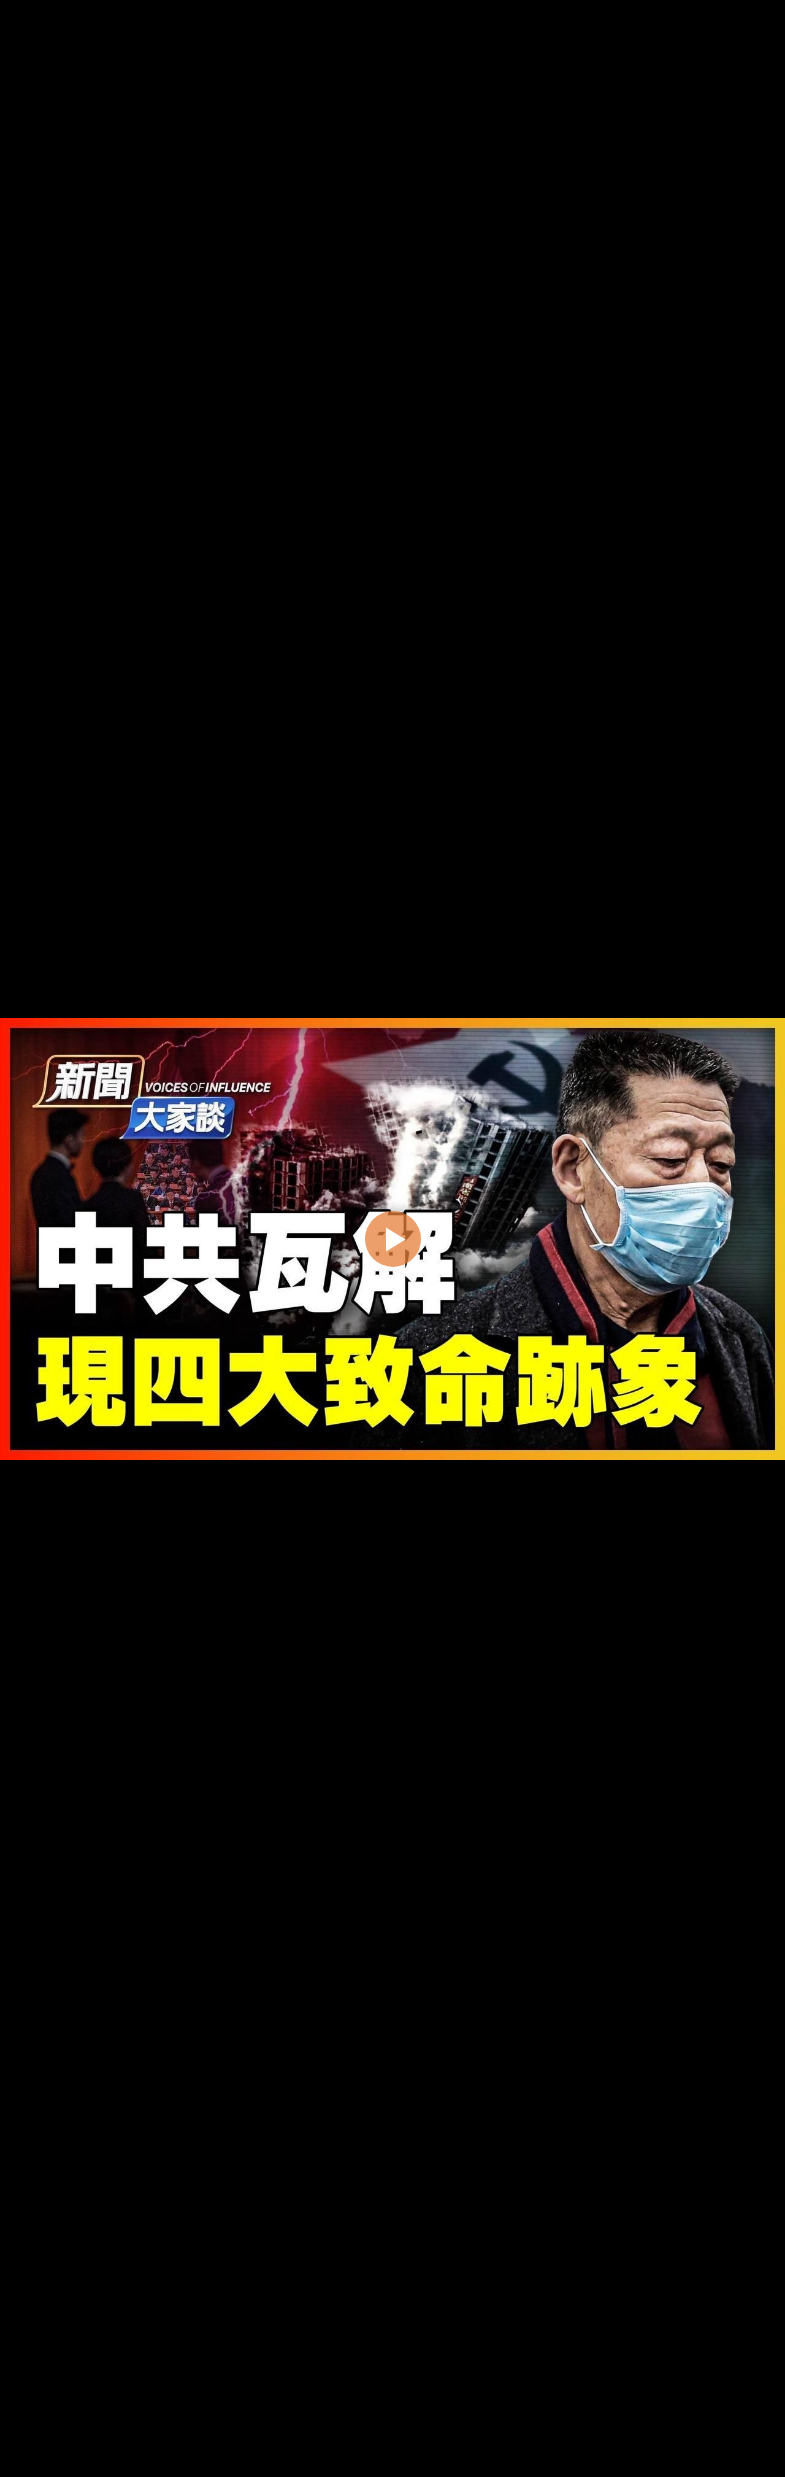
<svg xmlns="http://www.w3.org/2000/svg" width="785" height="2477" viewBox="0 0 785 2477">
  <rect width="100%" height="100%" fill="rgb(0,0,0)"/>
  <image x="0" y="1018" width="785" height="442" href="pic1.png"/>
  <circle cx="393" cy="1239" r="28" fill="rgba(229,127,56,0.75)"/>
  <path d="M386 1227.5V1251.5L405.5 1239.5Z" fill="rgb(255,255,255)"/>
</svg>
